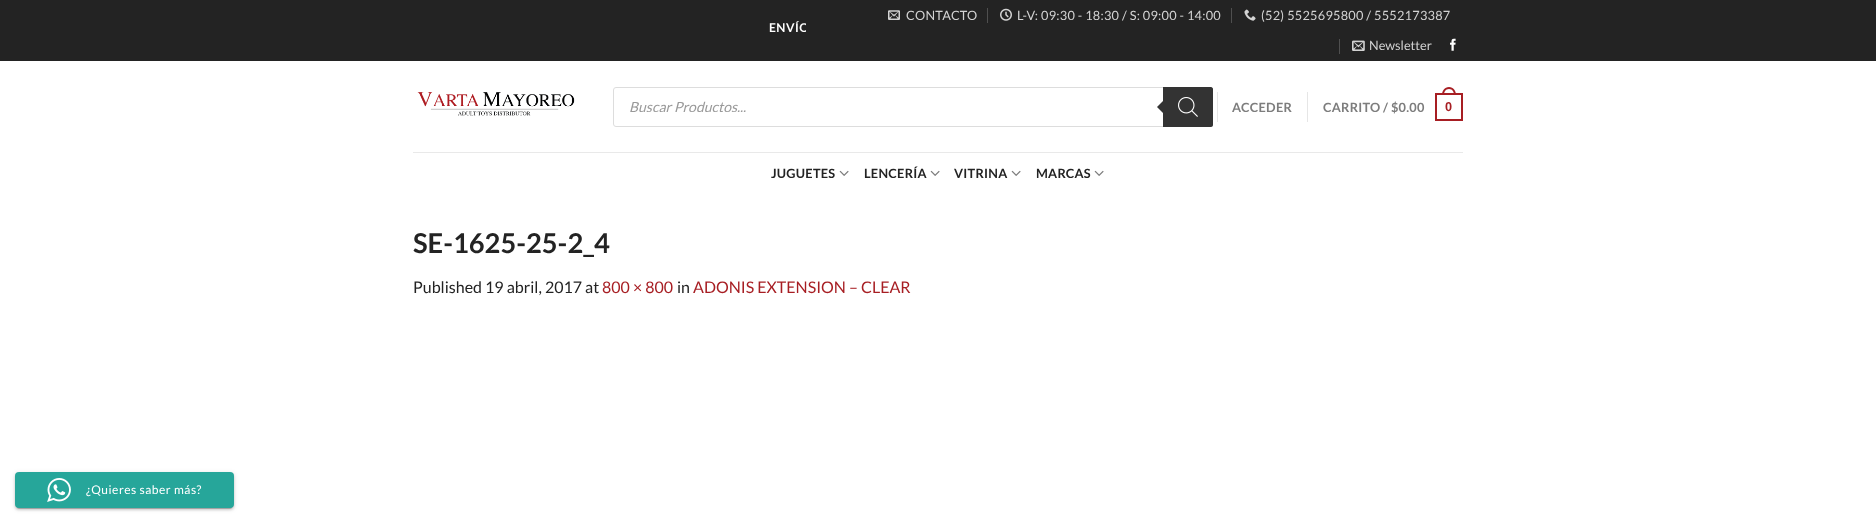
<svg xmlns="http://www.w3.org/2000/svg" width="1876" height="523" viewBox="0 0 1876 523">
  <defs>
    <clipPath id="clip1"><rect x="413" y="18" width="393" height="19"/></clipPath>
  </defs>
  <rect width="100%" height="100%" fill="rgb(255,255,255)"/>
  <rect x="0" y="0" width="1876" height="61" fill="rgb(35,35,35)"/>
  <g clip-path="url(#clip1)">
    <text x="769" y="32" font-family="Lato" font-size="12" font-weight="bold" letter-spacing="0.5" fill="rgb(255,255,255)">ENVÍO</text>
  </g>
  <image x="888" y="10" width="12" height="10" href="pic1.png"/>
  <text x="906" y="20" font-family="Lato" font-size="12.75" letter-spacing="0.25" fill="rgb(211,211,211)">CONTACTO</text>
  <rect x="987" y="8" width="1" height="15" fill="rgb(79,79,79)"/>
  <image x="1000" y="8" width="12" height="13" href="pic2.png"/>
  <text x="1017" y="20" font-family="Lato" font-size="12.75" letter-spacing="0.25" fill="rgb(211,211,211)">L-V: 09:30 - 18:30 / S: 09:00 - 14:00</text>
  <rect x="1231" y="8" width="1" height="15" fill="rgb(79,79,79)"/>
  <image x="1244" y="9" width="12" height="12" href="pic3.png"/>
  <text x="1261" y="20" font-family="Lato" font-size="12.75" letter-spacing="0.25" fill="rgb(211,211,211)">(52) 5525695800 / 5552173387</text>
  <rect x="1339" y="39" width="1" height="15" fill="rgb(79,79,79)"/>
  <image x="1352" y="40" width="13" height="11" href="pic4.png"/>
  <text x="1369" y="50" font-family="Lato" font-size="12.75" fill="rgb(211,211,211)">Newsletter</text>
  <image x="1450" y="38" width="6" height="13" href="pic5.png"/>
  <image x="417" y="92" width="158" height="24" href="pic6.png"/>
  <rect x="613.5" y="87.5" width="599" height="39" rx="2.5" fill="none" stroke="rgb(221,221,221)"/>
  <text x="629" y="112" font-family="Lato" font-size="14" font-style="italic" fill="rgb(153,153,153)">Buscar Productos...</text>
  <path d="M1163 87H1211C1212 87 1213 88 1213 89V125C1213 126 1212 127 1211 127H1163Z" fill="rgb(51,51,51)"/>
  <path d="M1165 99V115L1157 107Z" fill="rgb(51,51,51)"/>
  <image x="1178" y="97" width="20" height="20" href="pic7.png"/>
  <rect x="1217" y="92" width="1" height="30" fill="rgb(230,230,230)"/>
  <text x="1232" y="112" font-family="Lato" font-size="12.75" font-weight="bold" letter-spacing="0.25" fill="rgb(125,125,125)">ACCEDER</text>
  <rect x="1307" y="92" width="1" height="30" fill="rgb(230,230,230)"/>
  <text x="1323" y="112" font-family="Lato" font-size="12.75" font-weight="bold" letter-spacing="0.25" fill="rgb(125,125,125)">CARRITO / $0.00</text>
  <rect x="1436" y="94" width="26" height="26" fill="none" stroke="rgb(167,30,35)" stroke-width="2"/>
  <path d="M1449 87C1453.5 87 1456 91 1456 95H1442C1442 91 1444.5 87 1449 87ZM1449 89C1452.5 89 1454 92 1454 95H1444C1444 92 1445.5 89 1449 89Z" fill="rgb(167,30,35)" fill-rule="evenodd"/>
  <text x="1445" y="111" font-family="Liberation Sans" font-size="12.75" font-weight="bold" letter-spacing="0.25" fill="rgb(167,30,35)">0</text>
  <rect x="413" y="152" width="1050" height="1" fill="rgb(233,233,233)"/>
  <text x="771" y="178" font-family="Lato" font-size="12.75" font-weight="bold" letter-spacing="0.25" fill="rgb(35,35,35)">JUGUETES</text>
  <image x="839" y="170" width="10" height="6" href="pic8.png"/>
  <text x="864" y="178" font-family="Lato" font-size="12.75" font-weight="bold" letter-spacing="0.25" fill="rgb(35,35,35)">LENCERÍA</text>
  <image x="930" y="170" width="10" height="6" href="pic8.png"/>
  <text x="954" y="178" font-family="Lato" font-size="12.75" font-weight="bold" letter-spacing="0.25" fill="rgb(35,35,35)">VITRINA</text>
  <image x="1011" y="170" width="10" height="6" href="pic8.png"/>
  <text x="1036" y="178" font-family="Lato" font-size="12.75" font-weight="bold" letter-spacing="0.25" fill="rgb(35,35,35)">MARCAS</text>
  <image x="1094" y="170" width="10" height="6" href="pic8.png"/>
  <text x="413" y="253" font-family="Lato" font-size="27.25" font-weight="bold" fill="rgb(35,35,35)">SE-1625-25-2_4</text>
  <text x="413" y="293" font-family="Lato" font-size="16" fill="rgb(35,35,35)">Published 19 abril, 2017 at</text>
  <text x="602" y="293" font-family="Lato" font-size="16" fill="rgb(167,30,35)">800 × 800</text>
  <text x="677" y="293" font-family="Lato" font-size="16" fill="rgb(35,35,35)">in</text>
  <text x="693" y="293" font-family="Lato" font-size="16" fill="rgb(167,30,35)">ADONIS EXTENSION – CLEAR</text>
  <rect x="17" y="477" width="215" height="32" rx="2" fill="rgba(0,0,0,0.2)" filter="blur(0.5px)"/>
  <rect x="15" y="473" width="219" height="36" rx="4" fill="rgba(0,0,0,0.12)" filter="blur(2.5px)"/>
  <rect x="15" y="474" width="219" height="36" rx="4" fill="rgba(0,0,0,0.14)" filter="blur(1px)"/>
  <rect x="15" y="472" width="219" height="36" rx="4" fill="rgb(38,166,154)"/>
  <image x="47" y="478" width="24" height="24" href="pic9.png"/>
  <text x="86" y="494" font-family="Lato" font-size="12" letter-spacing="0.5" fill="rgb(255,255,255)">¿Quieres saber más?</text>
</svg>
